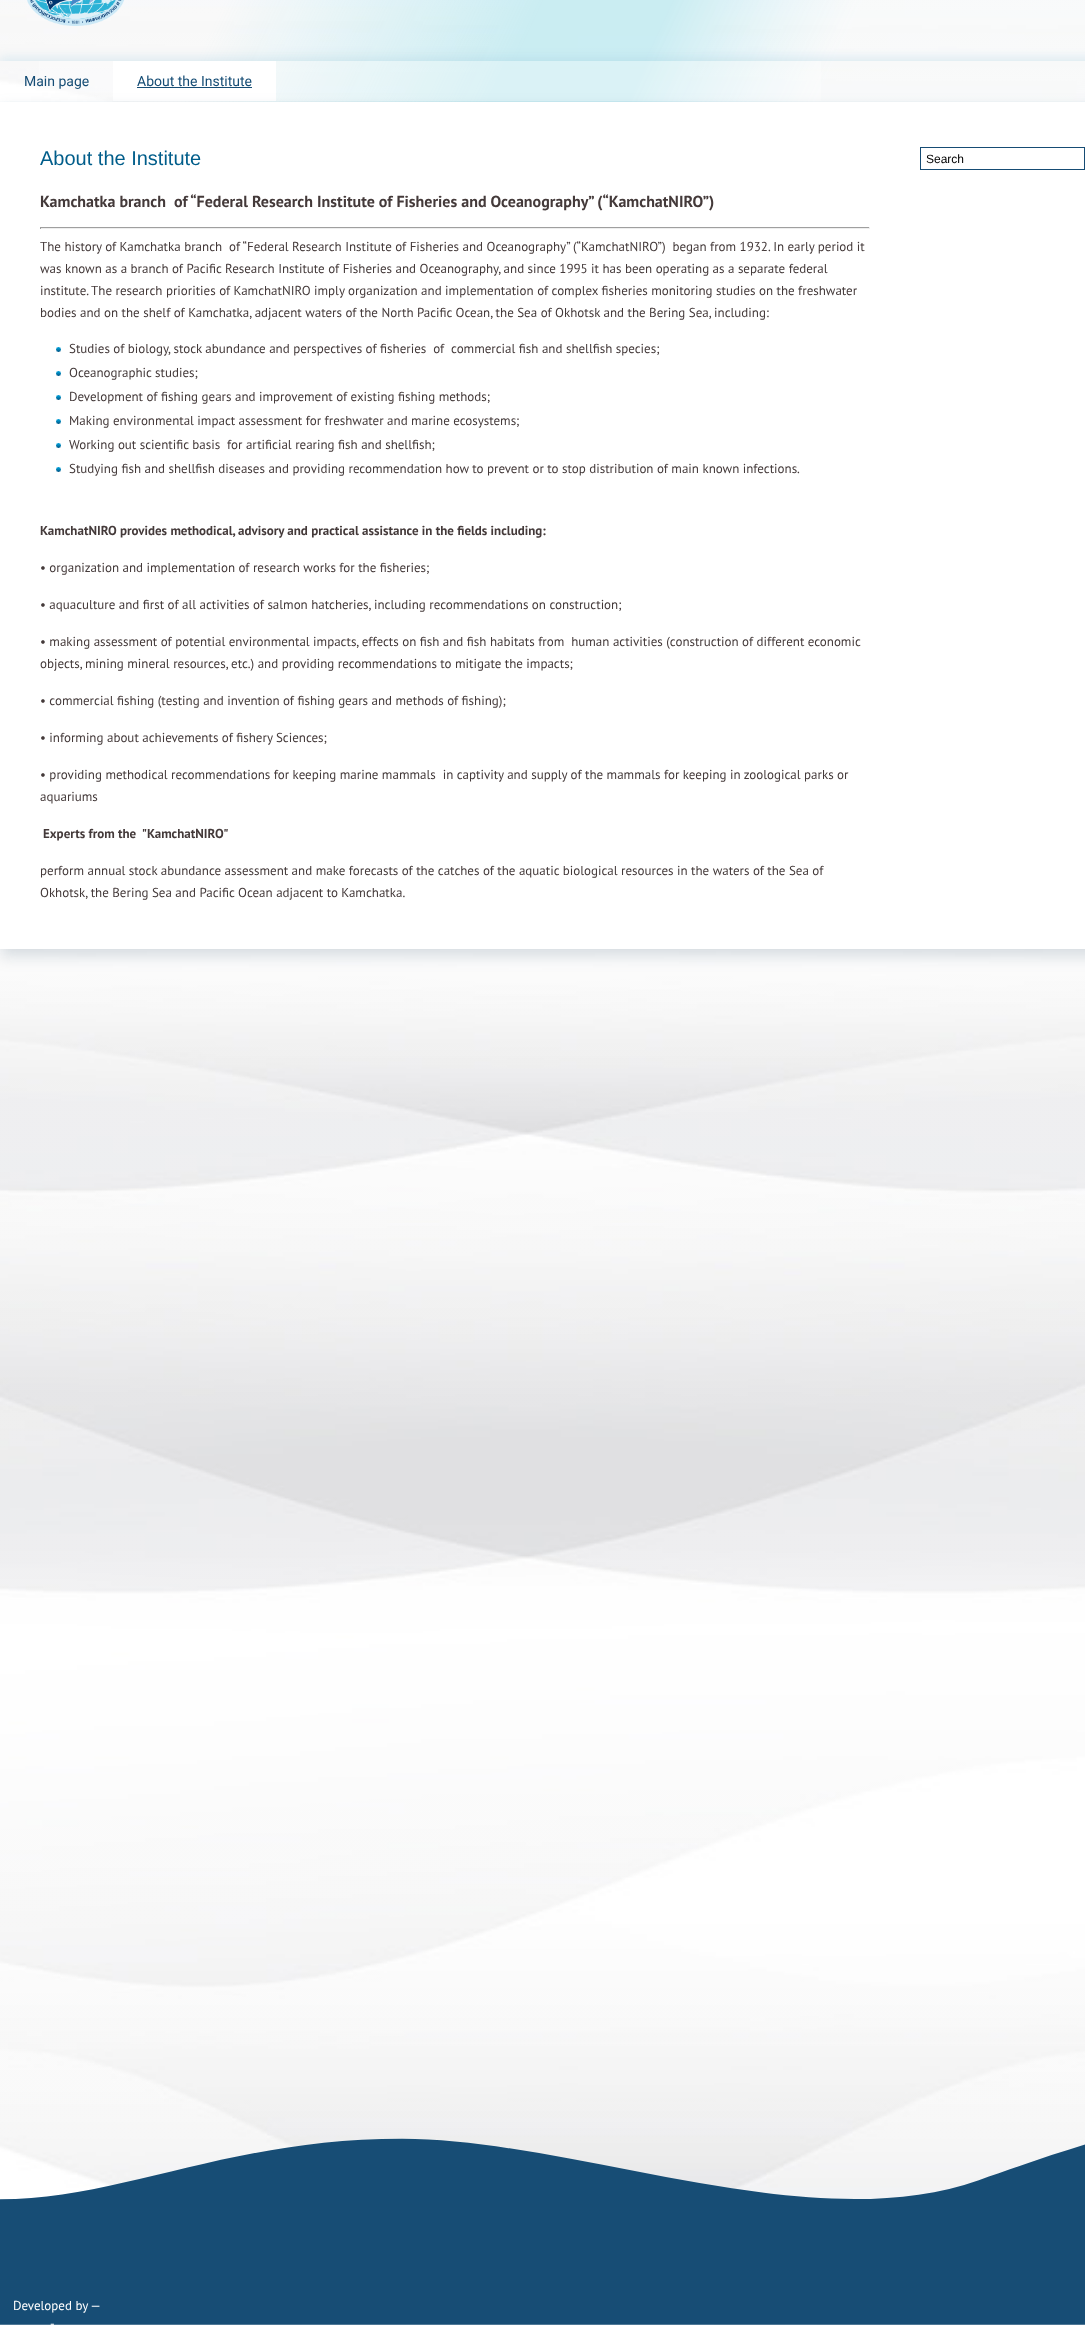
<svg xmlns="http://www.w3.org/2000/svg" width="1085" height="2325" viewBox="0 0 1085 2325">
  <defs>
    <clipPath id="clip1"><path d="M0 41H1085V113H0ZM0 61H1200V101H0Z" clip-rule="evenodd"/></clipPath>
  </defs>
  <rect width="100%" height="100%" fill="rgb(255,255,255)"/>
  <image x="0" y="0" width="1085" height="2325" href="pic1.png"/>
  <image x="27" y="0" width="97" height="26" href="pic2.png"/>
  <g clip-path="url(#clip1)">
    <rect x="0" y="57" width="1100" height="40" fill="rgba(152,199,225,0.25)" filter="blur(5px)"/>
  </g>
  <rect x="39" y="61" width="782" height="40" fill="rgba(255,255,255,0.3)"/>
  <text x="24" y="86" font-family="Roboto" font-size="14" fill="rgb(22,77,117)">Main page</text>
  <rect x="113" y="61" width="163" height="40" fill="rgb(255,255,255)"/>
  <text x="137" y="86" font-family="Roboto" font-size="14" fill="rgb(22,77,117)">About the Institute</text>
  <rect x="137" y="87" width="115" height="1" fill="rgb(22,77,117)"/>
  <rect x="0" y="109" width="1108" height="847" fill="rgba(81,106,128,0.23)" filter="blur(7.5px)"/>
  <rect x="0" y="102" width="1085" height="847" fill="rgb(255,255,255)"/>
  <text x="40" y="165" font-family="Liberation Sans" font-size="20" fill="rgb(0,93,138)">About the Institute</text>
  <text x="40" y="207" font-family="PT Sans" font-size="16" font-weight="bold" fill="rgb(68,58,58)" xml:space="preserve">Kamchatka branch  of “Federal Research Institute of Fisheries and Oceanography” (“KamchatNIRO”)</text>
  <rect x="40" y="227" width="830" height="1" fill="rgb(159,159,159)"/>
  <rect x="869" y="227" width="1" height="2" fill="rgb(238,238,238)"/>
  <rect x="40" y="228" width="830" height="1" fill="rgb(238,238,238)"/>
  <rect x="40" y="227" width="1" height="2" fill="rgb(159,159,159)"/>
  <g font-family="PT Sans" font-size="13" fill="rgb(68,58,58)">
    <text xml:space="preserve"><tspan x="40" y="251">The history of Kamchatka branch  of “Federal Research Institute of Fisheries and Oceanography” (“KamchatNIRO”)  began from 1932. In early period it</tspan><tspan x="40" y="273">was known as a branch of Pacific Research Institute of Fisheries and Oceanography, and since 1995 it has been operating as a separate federal</tspan><tspan x="40" y="295">institute. The research priorities of KamchatNIRO imply organization and implementation of complex fisheries monitoring studies on the freshwater</tspan><tspan x="40" y="317">bodies and on the shelf of Kamchatka, adjacent waters of the North Pacific Ocean, the Sea of Okhotsk and the Bering Sea, including:</tspan></text>
  </g>
  <image x="56" y="347" width="5" height="5" href="pic3.png"/>
  <text x="69" y="353" font-family="PT Sans" font-size="13" fill="rgb(68,58,58)" xml:space="preserve">Studies of biology, stock abundance and perspectives of fisheries  of  commercial fish and shellfish species;</text>
  <image x="56" y="371" width="5" height="5" href="pic3.png"/>
  <text x="69" y="377" font-family="PT Sans" font-size="13" fill="rgb(68,58,58)">Oceanographic studies;</text>
  <image x="56" y="395" width="5" height="5" href="pic3.png"/>
  <text x="69" y="401" font-family="PT Sans" font-size="13" fill="rgb(68,58,58)">Development of fishing gears and improvement of existing fishing methods;</text>
  <image x="56" y="419" width="5" height="5" href="pic3.png"/>
  <text x="69" y="425" font-family="PT Sans" font-size="13" fill="rgb(68,58,58)">Making environmental impact assessment for freshwater and marine ecosystems;</text>
  <image x="56" y="443" width="5" height="5" href="pic3.png"/>
  <text x="69" y="449" font-family="PT Sans" font-size="13" fill="rgb(68,58,58)" xml:space="preserve">Working out scientific basis  for artificial rearing fish and shellfish;</text>
  <image x="56" y="467" width="5" height="5" href="pic3.png"/>
  <text x="69" y="473" font-family="PT Sans" font-size="13" fill="rgb(68,58,58)">Studying fish and shellfish diseases and providing recommendation how to prevent or to stop distribution of main known infections.</text>
  <text x="40" y="535" font-family="PT Sans" font-size="13" font-weight="bold" fill="rgb(68,58,58)">KamchatNIRO provides methodical, advisory and practical assistance in the fields including:</text>
  <g font-family="PT Sans" font-size="13" fill="rgb(68,58,58)">
    <text x="40" y="572">• organization and implementation of research works for the fisheries;</text>
    <text x="40" y="609">• aquaculture and first of all activities of salmon hatcheries, including recommendations on construction;</text>
    <text xml:space="preserve"><tspan x="40" y="646">• making assessment of potential environmental impacts, effects on fish and fish habitats from  human activities (construction of different economic</tspan><tspan x="40" y="668">objects, mining mineral resources, etc.) and providing recommendations to mitigate the impacts;</tspan></text>
    <text x="40" y="705">• commercial fishing (testing and invention of fishing gears and methods of fishing);</text>
    <text x="40" y="742">• informing about achievements of fishery Sciences;</text>
    <text xml:space="preserve"><tspan x="40" y="779">• providing methodical recommendations for keeping marine mammals  in captivity and supply of the mammals for keeping in zoological parks or</tspan><tspan x="40" y="801">aquariums</tspan></text>
  </g>
  <text x="43" y="838" font-family="PT Sans" font-size="13" font-weight="bold" fill="rgb(68,58,58)" xml:space="preserve">Experts from the  "KamchatNIRO"</text>
  <g font-family="PT Sans" font-size="13" fill="rgb(68,58,58)">
    <text>
      <tspan x="40" y="875">perform annual stock abundance assessment and make forecasts of the catches of the aquatic biological resources in the waters of the Sea of</tspan>
      <tspan x="40" y="897">Okhotsk, the Bering Sea and Pacific Ocean adjacent to Kamchatka.</tspan>
    </text>
  </g>
  <rect x="920.5" y="147.5" width="164" height="22" fill="none" stroke="rgb(22,76,116)"/>
  <text x="926" y="163" font-family="Liberation Sans" font-size="12" fill="rgb(0,0,0)">Search</text>
  <g font-family="PT Sans" font-size="13" fill="rgb(255,255,255)">
    <text x="13" y="2310">Developed by —</text>
    <text x="50" y="2328">-</text>
  </g>
</svg>
